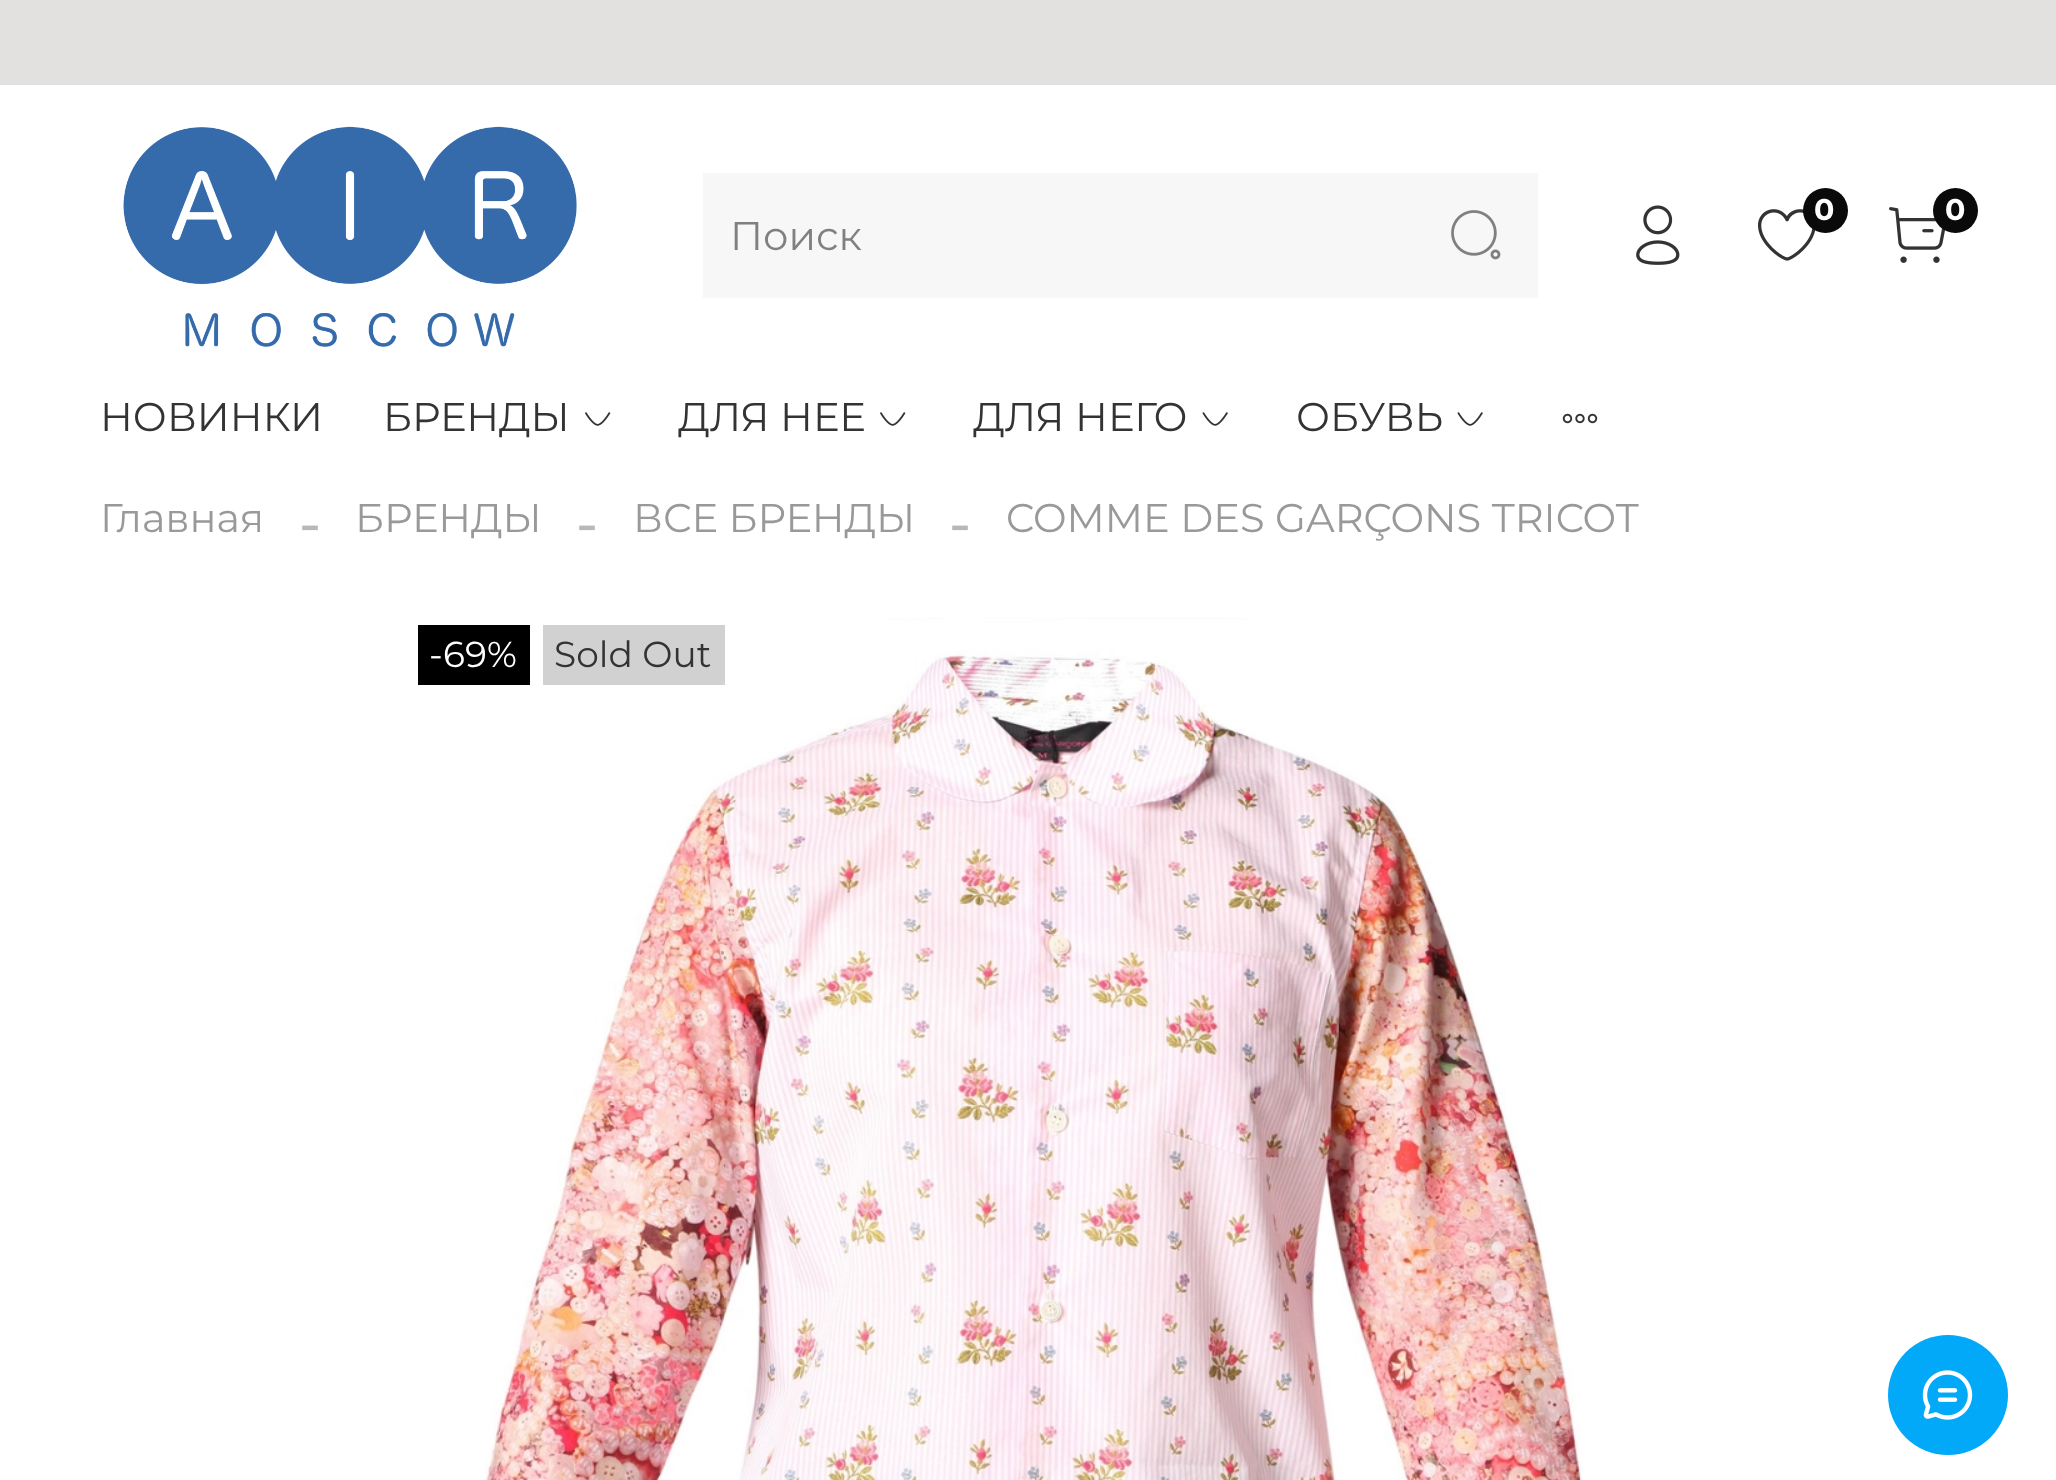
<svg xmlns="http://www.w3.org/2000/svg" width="2056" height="1480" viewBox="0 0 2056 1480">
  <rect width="100%" height="100%" fill="rgb(255,255,255)"/>
  <rect x="0" y="0" width="2056" height="85" fill="rgb(227,224,224)"/>
  <image x="123" y="126" width="454" height="221" href="pic1.png"/>
  <image x="1636" y="205" width="44" height="60" href="pic2.png"/>
  <image x="1758" y="209" width="58" height="52" href="pic3.png"/>
  <circle cx="1825.5" cy="210.5" r="22.5" fill="rgb(10,10,10)"/>
  <text x="1814" y="220" font-family="Montserrat" font-size="30" font-weight="bold" fill="rgb(255,255,255)">0</text>
  <image x="1889" y="207" width="56" height="56" href="pic4.png"/>
  <circle cx="1955.5" cy="210.5" r="22.5" fill="rgb(10,10,10)"/>
  <text x="1945" y="220" font-family="Montserrat" font-size="30" font-weight="bold" fill="rgb(255,255,255)">0</text>
  <rect x="703" y="173" width="835" height="125" fill="rgb(247,247,247)"/>
  <text x="730" y="250" font-family="Montserrat" font-size="40" fill="rgb(128,128,128)">Поиск</text>
  <image x="1451" y="210" width="50" height="50" href="pic5.png"/>
  <g font-family="Montserrat" font-size="40" fill="rgb(51,51,51)">
    <text x="100" y="431">НОВИНКИ</text>
    <text x="383" y="431">БРЕНДЫ</text>
  </g>
  <image x="585" y="412" width="26" height="14" href="pic6.png"/>
  <text x="678" y="431" font-family="Montserrat" font-size="40" fill="rgb(51,51,51)">ДЛЯ НЕЕ</text>
  <image x="880" y="412" width="26" height="14" href="pic6.png"/>
  <text x="973" y="431" font-family="Montserrat" font-size="40" fill="rgb(51,51,51)">ДЛЯ НЕГО</text>
  <image x="1202" y="412" width="26" height="14" href="pic7.png"/>
  <text x="1296" y="431" font-family="Montserrat" font-size="40" fill="rgb(51,51,51)">ОБУВЬ</text>
  <image x="1457" y="412" width="26" height="14" href="pic7.png"/>
  <image x="1562" y="413" width="36" height="11" href="pic8.png"/>
  <text x="100" y="532" font-family="Montserrat" font-size="40" fill="rgb(153,153,153)">Главная</text>
  <text x="300" y="542" font-family="Liberation Serif" font-size="60" fill="rgb(184,184,184)">-</text>
  <text x="355" y="532" font-family="Montserrat" font-size="40" fill="rgb(153,153,153)">БРЕНДЫ</text>
  <text x="577" y="542" font-family="Liberation Serif" font-size="60" fill="rgb(184,184,184)">-</text>
  <text x="633" y="532" font-family="Montserrat" font-size="40" fill="rgb(153,153,153)">ВСЕ БРЕНДЫ</text>
  <text x="950" y="542" font-family="Liberation Serif" font-size="60" fill="rgb(184,184,184)">-</text>
  <text x="1006" y="532" font-family="Montserrat" font-size="40" fill="rgb(153,153,153)">COMME DES GARÇONS TRICOT</text>
  <image x="484" y="618" width="1098" height="862" href="pic9.png"/>
  <rect x="418" y="625" width="112" height="60" fill="rgb(0,0,0)"/>
  <text x="429" y="667" font-family="Montserrat" font-size="36" fill="rgb(255,255,255)">-69%</text>
  <rect x="543" y="625" width="182" height="60" fill="rgb(209,209,209)"/>
  <text x="554" y="667" font-family="Montserrat" font-size="36" fill="rgb(51,51,51)">Sold Out</text>
  <circle cx="1948" cy="1395" r="60" fill="rgb(1,169,248)"/>
  <image x="1922" y="1370" width="51" height="50" href="pic10.png"/>
</svg>
